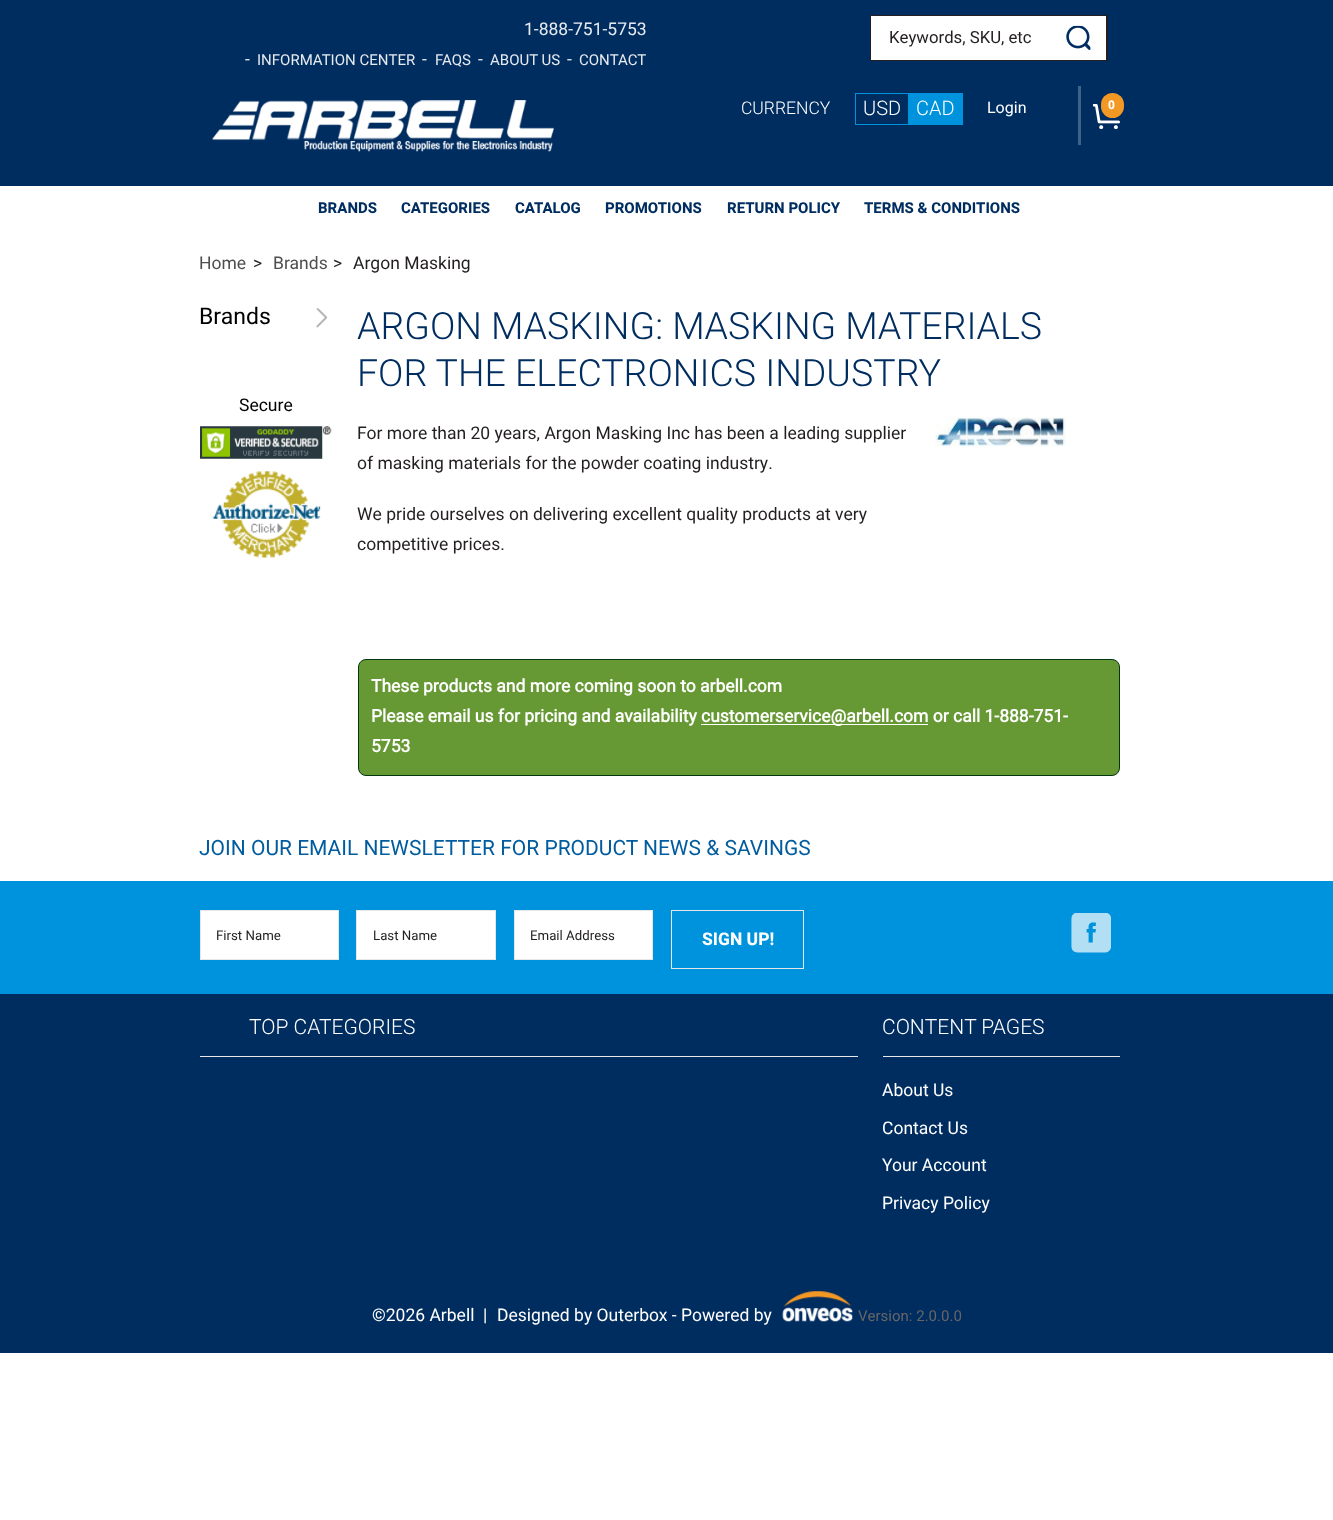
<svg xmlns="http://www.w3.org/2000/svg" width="1333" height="1520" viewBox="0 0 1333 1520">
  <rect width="100%" height="100%" fill="rgb(255,255,255)"/>
  <rect x="0" y="0" width="1333" height="186" fill="rgb(0,45,96)"/>
  <g font-family="Heebo" font-size="17.5" fill="rgb(230,234,239)">
    <text x="524" y="35">1-888-751-5753</text>
    <text x="245" y="65">-</text>
  </g>
  <text x="257" y="65" font-family="Heebo" font-size="15" fill="rgb(230,234,239)">INFORMATION CENTER</text>
  <text x="422" y="65" font-family="Heebo" font-size="17.5" fill="rgb(230,234,239)">-</text>
  <text x="435" y="65" font-family="Heebo" font-size="15" fill="rgb(230,234,239)">FAQS</text>
  <text x="478" y="65" font-family="Heebo" font-size="17.5" fill="rgb(230,234,239)">-</text>
  <text x="490" y="65" font-family="Heebo" font-size="15" fill="rgb(230,234,239)">ABOUT US</text>
  <text x="567" y="65" font-family="Heebo" font-size="17.5" fill="rgb(230,234,239)">-</text>
  <text x="579" y="65" font-family="Heebo" font-size="15" fill="rgb(230,234,239)">CONTACT</text>
  <image x="212" y="100" width="342" height="52" href="pic1.png"/>
  <rect x="871" y="16" width="235" height="44" fill="rgb(255,255,255)"/>
  <rect x="870.5" y="15.5" width="237" height="45" fill="none" stroke="rgb(35,31,32)"/>
  <text x="889" y="43" font-family="Heebo" font-size="16.75" fill="rgb(35,31,32)">Keywords, SKU, etc</text>
  <rect x="1106" y="15" width="1" height="46" fill="rgb(35,31,32)"/>
  <image x="1066" y="25" width="25" height="25" href="pic2.png"/>
  <text x="741" y="114" font-family="Heebo" font-size="17.5" font-weight="300" fill="rgb(255,255,255)">CURRENCY</text>
  <rect x="855.5" y="93.5" width="53" height="31" fill="none" stroke="rgb(0,147,221)"/>
  <text x="863" y="115" font-family="Heebo" font-size="20" font-weight="300" fill="rgb(255,255,255)">USD</text>
  <rect x="909" y="93" width="54" height="32" fill="rgb(0,147,221)"/>
  <text x="916" y="115" font-family="Heebo" font-size="20" font-weight="300" fill="rgb(255,255,255)">CAD</text>
  <text x="987" y="113" font-family="Heebo" font-size="16" fill="rgb(255,255,255)">Login</text>
  <rect x="1078" y="86" width="3" height="59" fill="rgb(64,98,136)"/>
  <image x="1093" y="104" width="27" height="25" href="pic3.png"/>
  <rect x="1101" y="93" width="23" height="25" rx="11.5" fill="rgb(244,152,37)"/>
  <text x="1108" y="109" font-family="Heebo" font-size="12" font-weight="bold" fill="rgb(255,255,255)">0</text>
  <g font-family="Heebo" font-size="15" font-weight="bold" fill="rgb(0,45,96)">
    <text x="318" y="213">BRANDS</text>
    <text x="401" y="213">CATEGORIES</text>
    <text x="515" y="213">CATALOG</text>
    <text x="605" y="213">PROMOTIONS</text>
    <text x="727" y="213">RETURN POLICY</text>
    <text x="864" y="213">TERMS &amp; CONDITIONS</text>
  </g>
  <text x="199" y="269" font-family="Heebo" font-size="17.5" fill="rgb(78,78,78)">Home</text>
  <text x="253" y="269" font-family="Heebo" font-size="17.5" fill="rgb(35,31,32)">&gt;</text>
  <text x="273" y="269" font-family="Heebo" font-size="17.5" fill="rgb(78,78,78)">Brands</text>
  <g font-family="Heebo" font-size="17.5" fill="rgb(35,31,32)">
    <text x="333" y="269">&gt;</text>
    <text x="353" y="269">Argon Masking</text>
  </g>
  <text x="199" y="324" font-family="Heebo" font-size="23" fill="rgb(0,0,0)">Brands</text>
  <image x="316" y="308" width="12" height="20" href="pic4.png"/>
  <text x="239" y="411" font-family="Heebo" font-size="17.5" fill="rgb(0,0,0)">Secure</text>
  <image x="200" y="426" width="132" height="33" href="pic5.png"/>
  <image x="212" y="471" width="109" height="87" href="pic6.png"/>
  <g font-family="Heebo" font-size="37.5" font-weight="300" fill="rgb(0,45,96)">
    <text>
      <tspan x="357" y="339">ARGON MASKING: MASKING MATERIALS</tspan>
      <tspan x="357" y="386">FOR THE ELECTRONICS INDUSTRY</tspan>
    </text>
  </g>
  <g font-family="Heebo" font-size="17.5" fill="rgb(35,31,32)">
    <text>
      <tspan x="357" y="439">For more than 20 years, Argon Masking Inc has been a leading supplier</tspan>
      <tspan x="357" y="469">of masking materials for the powder coating industry.</tspan>
    </text>
    <text>
      <tspan x="357" y="520">We pride ourselves on delivering excellent quality products at very</tspan>
      <tspan x="357" y="550">competitive prices.</tspan>
    </text>
  </g>
  <image x="935" y="417" width="131" height="30" href="pic7.png"/>
  <rect x="358.5" y="659.5" width="761" height="116" rx="7.5" fill="rgb(102,153,51)" stroke="rgb(2,56,17)"/>
  <g font-family="'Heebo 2'" font-size="17.5" font-weight="bold" fill="rgb(255,255,255)">
    <text>
      <tspan x="371" y="692">These products and more coming soon to arbell.com</tspan>
      <tspan x="371" y="722">Please email us for pricing and availability</tspan>
    </text>
  </g>
  <rect x="701" y="724" width="227" height="1" fill="rgb(255,255,255)"/>
  <g font-family="'Heebo 2'" font-size="17.5" font-weight="bold" fill="rgb(255,255,255)">
    <text x="701" y="722">customerservice@arbell.com or call 1-888-751-</text>
    <text x="371" y="752">5753</text>
  </g>
  <rect x="0" y="994" width="1333" height="359" fill="rgb(0,45,96)"/>
  <rect x="0" y="881" width="1333" height="113" fill="rgb(0,147,221)"/>
  <text x="199" y="855" font-family="Heebo" font-size="21" fill="rgb(0,92,159)">JOIN OUR EMAIL NEWSLETTER FOR PRODUCT NEWS &amp; SAVINGS</text>
  <rect x="200.5" y="910.5" width="138" height="49" fill="rgb(255,255,255)" stroke="rgb(231,231,231)"/>
  <text x="216" y="940" font-family="Heebo" font-size="13.25" fill="rgb(35,31,32)">First Name</text>
  <rect x="356.5" y="910.5" width="139" height="49" fill="rgb(255,255,255)" stroke="rgb(231,231,231)"/>
  <text x="373" y="940" font-family="Heebo" font-size="13.25" fill="rgb(35,31,32)">Last Name</text>
  <rect x="514.5" y="910.5" width="138" height="49" fill="rgb(255,255,255)" stroke="rgb(231,231,231)"/>
  <text x="530" y="940" font-family="Heebo" font-size="13.25" fill="rgb(35,31,32)">Email Address</text>
  <rect x="671.5" y="910.5" width="132" height="58" fill="none" stroke="rgb(231,231,231)"/>
  <text x="702" y="945" font-family="Heebo" font-size="17.5" font-weight="bold" fill="rgb(255,255,255)">SIGN UP!</text>
  <image x="1071" y="913" width="40" height="40" href="pic8.png"/>
  <text x="249" y="1034" font-family="Heebo" font-size="21" font-weight="300" fill="rgb(255,255,255)">TOP CATEGORIES</text>
  <rect x="200" y="1056" width="658" height="1" fill="rgb(231,231,231)"/>
  <text x="882" y="1034" font-family="Heebo" font-size="21" font-weight="300" fill="rgb(255,255,255)">CONTENT PAGES</text>
  <rect x="883" y="1056" width="237" height="1" fill="rgb(231,231,231)"/>
  <g font-family="Heebo" font-size="17.5" fill="rgb(255,255,255)">
    <text x="882" y="1096">About Us</text>
    <text x="882" y="1134">Contact Us</text>
    <text x="882" y="1171">Your Account</text>
    <text x="882" y="1209">Privacy Policy</text>
    <text x="372" y="1321">©2026 Arbell</text>
    <text x="483" y="1321">|</text>
    <text x="497" y="1321">Designed by Outerbox - Powered by</text>
  </g>
  <image x="782" y="1291" width="71" height="31" href="pic9.png"/>
  <text x="858" y="1321" font-family="Heebo" font-size="15" fill="rgb(102,102,102)">Version: 2.0.0.0</text>
</svg>
